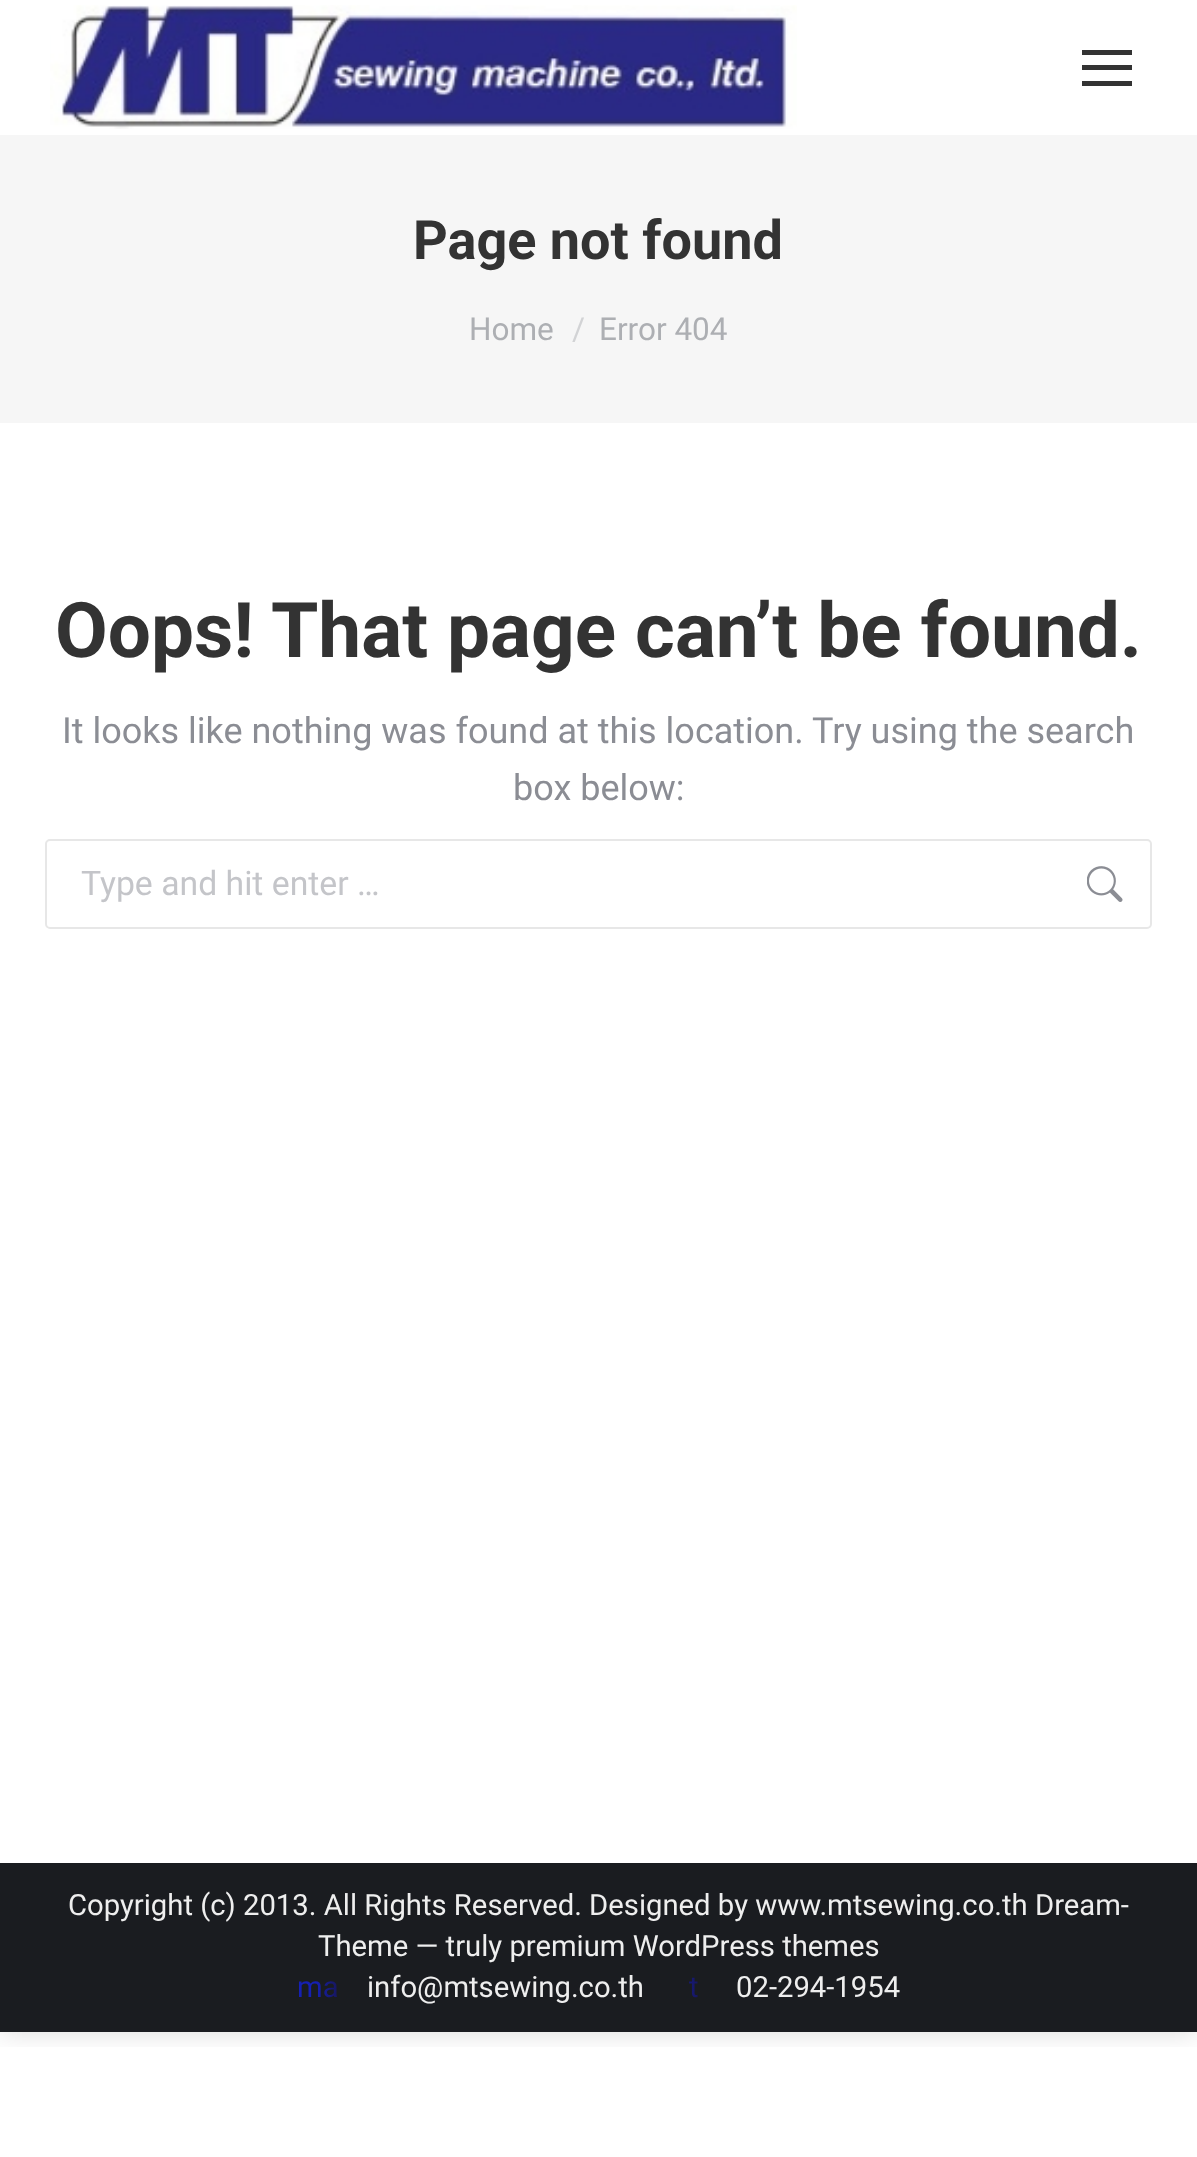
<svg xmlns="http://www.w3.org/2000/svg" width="1197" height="2157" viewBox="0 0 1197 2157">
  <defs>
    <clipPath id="clip1"><rect x="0" y="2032" width="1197" height="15"/></clipPath>
    <linearGradient id="g1" gradientUnits="userSpaceOnUse" x1="297" y1="1987" x2="360" y2="1987"><stop offset="0.3" stop-color="rgb(21,32,181)"/><stop offset="1" stop-color="rgb(25,13,1)"/></linearGradient>
    <linearGradient id="g2" gradientUnits="userSpaceOnUse" x1="644" y1="1987" x2="729" y2="1987"><stop offset="0.3" stop-color="rgb(21,32,181)"/><stop offset="1" stop-color="rgb(25,13,1)"/></linearGradient>
  </defs>
  <rect width="100%" height="100%" fill="rgb(255,255,255)"/>
  <g clip-path="url(#clip1)">
    <rect x="0" y="0" width="1197" height="2032" fill="rgba(0,0,0,0.15)" filter="blur(13.5px)"/>
  </g>
  <image x="50" y="5" width="747" height="124" href="pic1.png"/>
  <rect x="1082" y="50" width="50" height="5" fill="rgb(51,51,51)"/>
  <rect x="1082" y="65" width="50" height="5" fill="rgb(51,51,51)"/>
  <rect x="1082" y="81" width="50" height="5" fill="rgb(51,51,51)"/>
  <rect x="0" y="135" width="1197" height="288" fill="rgb(246,246,246)"/>
  <text x="413" y="259" font-family="Roboto" font-size="54" font-weight="bold" fill="rgb(51,51,51)">Page not found</text>
  <text x="469" y="340" font-family="Roboto" font-size="31.5" fill="rgb(173,175,179)">Home</text>
  <text x="572" y="340" font-family="Roboto" font-size="31.5" fill="rgb(210,211,213)">/</text>
  <text x="599" y="340" font-family="Roboto" font-size="31.5" fill="rgb(173,175,179)">Error 404</text>
  <text x="55" y="657" font-family="Roboto" font-size="76.5" font-weight="bold" fill="rgb(51,51,51)">Oops! That page can’t be found.</text>
  <g font-family="Roboto" font-size="36" fill="rgb(139,141,148)">
    <text x="62" y="743">It looks like nothing was found at this location. Try using the search</text>
    <text x="513" y="800">box below:</text>
  </g>
  <rect x="46" y="840" width="1105" height="88" rx="4" fill="none" stroke="rgb(231,231,231)" stroke-width="2"/>
  <text x="81" y="895" font-family="Roboto" font-size="33.75" fill="rgb(196,197,201)">Type and hit enter …</text>
  <image x="1087" y="866" width="36" height="36" href="pic2.png"/>
  <rect x="0" y="1863" width="1197" height="169" fill="rgb(26,28,32)"/>
  <g font-family="Roboto" font-size="29.25" fill="rgb(238,238,238)">
    <text x="68" y="1915">Copyright (c) 2013. All Rights Reserved. Designed by www.mtsewing.co.th Dream-</text>
    <text x="318" y="1956">Theme — truly premium WordPress themes</text>
  </g>
  <text x="297" y="1997" font-family="Roboto" font-size="29.25" fill="url(#g1)">ma</text>
  <text x="367" y="1997" font-family="Roboto" font-size="29.25" fill="rgb(238,238,238)">info@mtsewing.co.th</text>
  <text x="689" y="1997" font-family="Roboto" font-size="29.25" fill="url(#g2)">t</text>
  <text x="736" y="1997" font-family="Roboto" font-size="29.25" fill="rgb(238,238,238)">02-294-1954</text>
</svg>
